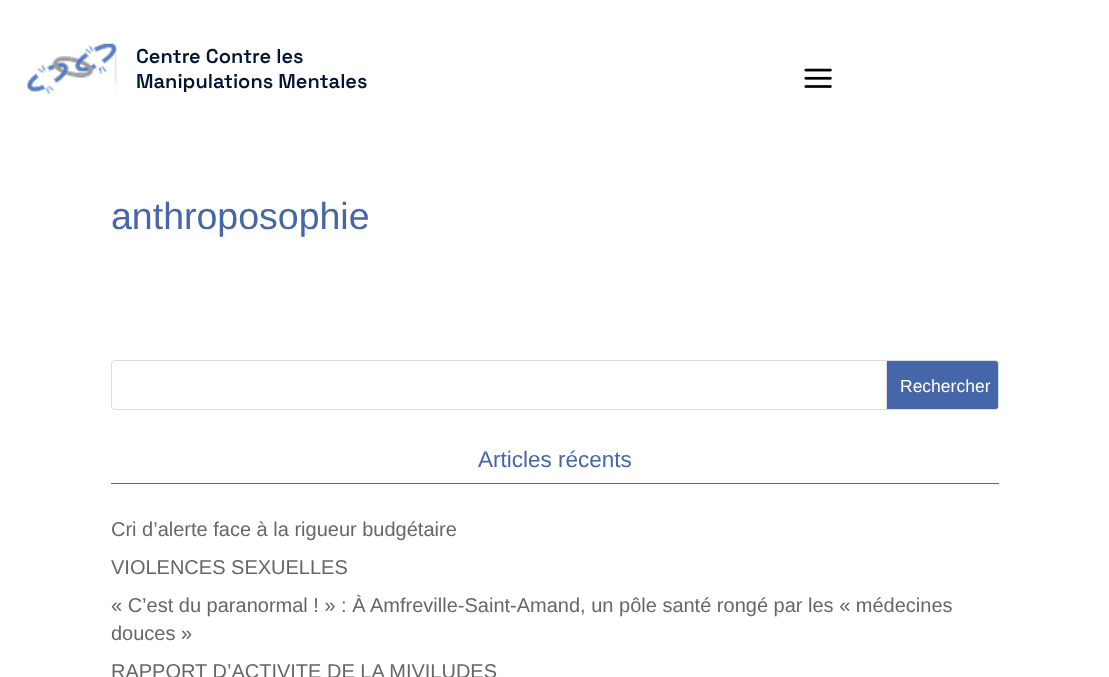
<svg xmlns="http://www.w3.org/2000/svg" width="1109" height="677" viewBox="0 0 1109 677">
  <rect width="100%" height="100%" fill="rgb(255,255,255)"/>
  <image x="27" y="43" width="91" height="51" href="pic1.png"/>
  <g font-family="Space Grotesk" font-size="20" font-weight="600" fill="rgb(0,21,52)">
    <text>
      <tspan x="136" y="63">Centre Contre les</tspan>
      <tspan x="136" y="88">Manipulations Mentales</tspan>
    </text>
  </g>
  <image x="804" y="68" width="28" height="20" href="pic2.png"/>
  <text x="111" y="229" font-family="Liberation Sans" font-size="37.5" fill="rgb(70,102,170)">anthroposophie</text>
  <rect x="111.5" y="360.5" width="887" height="49" rx="3.5" fill="none" stroke="rgb(221,221,221)"/>
  <path d="M886.5 360.5H995C997 360.5 998.5 362 998.5 364V406C998.5 408 997 409.5 995 409.5H886.5Z" fill="rgb(70,102,170)" stroke="rgb(221,221,221)"/>
  <text x="900" y="392" font-family="Liberation Sans" font-size="17.5" fill="rgb(255,255,255)">Rechercher</text>
  <rect x="111" y="483" width="888" height="1" fill="rgb(70,102,170)"/>
  <text x="478" y="467" font-family="Liberation Sans" font-size="22.5" fill="rgb(70,102,170)">Articles récents</text>
  <g font-family="Liberation Sans" font-size="20" fill="rgb(102,102,102)">
    <text>
      <tspan x="111" y="536">Cri d’alerte face à la rigueur budgétaire</tspan>
      <tspan x="111" y="574">VIOLENCES SEXUELLES</tspan>
      <tspan x="111" y="612">« C’est du paranormal ! » : À Amfreville-Saint-Amand, un pôle santé rongé par les « médecines</tspan>
      <tspan x="111" y="640">douces »</tspan>
      <tspan x="111" y="678">RAPPORT D’ACTIVITE DE LA MIVILUDES</tspan>
    </text>
  </g>
</svg>
